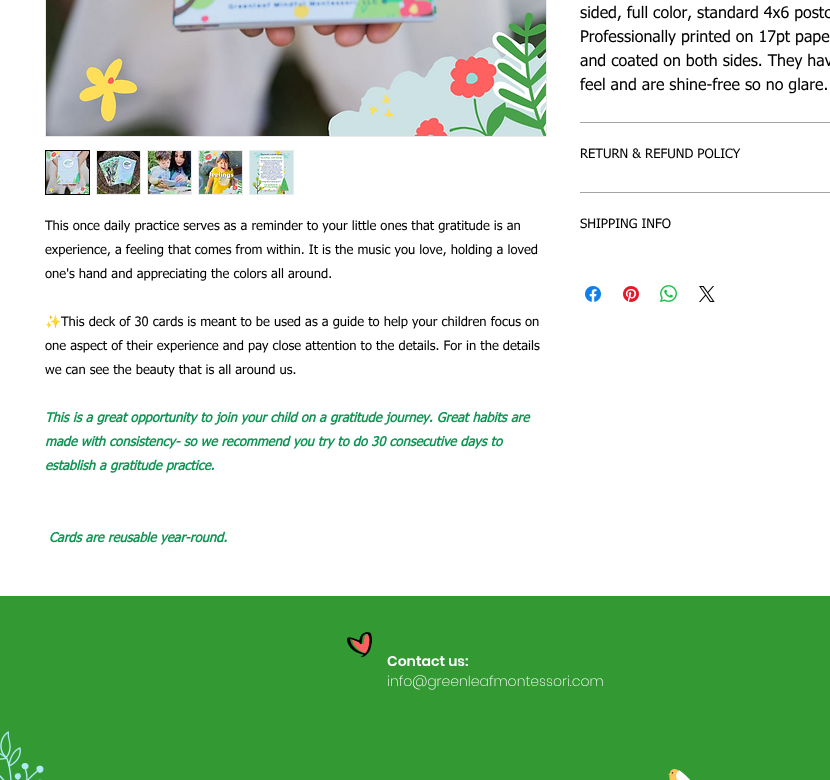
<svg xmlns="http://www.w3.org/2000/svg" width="830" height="780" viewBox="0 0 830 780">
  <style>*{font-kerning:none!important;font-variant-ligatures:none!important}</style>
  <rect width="100%" height="100%" fill="rgb(255,255,255)"/>
  <rect x="580" y="122" width="250" height="1" fill="rgb(164,164,164)"/>
  <g font-family="tahoma" font-size="16" fill="rgb(0,0,0)">
    <text>
      <tspan x="580" y="18">sided, full color, standard 4x6 postc</tspan>
      <tspan x="580" y="42">Professionally printed on 17pt pape</tspan>
      <tspan x="580" y="66">and coated on both sides. They hav</tspan>
      <tspan x="580" y="90">feel and are shine-free so no glare.</tspan>
    </text>
  </g>
  <rect x="580" y="192" width="250" height="1" fill="rgb(164,164,164)"/>
  <g font-family="tahoma" font-size="13" fill="rgb(0,0,0)">
    <text x="580" y="158">RETURN &amp; REFUND POLICY</text>
    <text x="580" y="228">SHIPPING INFO</text>
  </g>
  <image x="585" y="286" width="16" height="16" href="pic1.png"/>
  <image x="623" y="286" width="16" height="16" href="pic2.png"/>
  <image x="660" y="285" width="17" height="17" href="pic3.png"/>
  <image x="699" y="286" width="16" height="16" href="pic4.png"/>
  <rect x="45.5" y="-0.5" width="501" height="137" fill="none" stroke="rgb(234,234,234)"/>
  <image x="46" y="0" width="500" height="136" href="pic5.png"/>
  <rect x="45.5" y="150.5" width="44" height="44" fill="none" stroke="rgb(0,0,0)"/>
  <image x="46" y="151" width="43" height="43" href="pic6.png"/>
  <rect x="96.5" y="150.5" width="44" height="44" fill="none" stroke="rgb(234,234,234)"/>
  <image x="97" y="151" width="43" height="43" href="pic7.png"/>
  <rect x="147.5" y="150.5" width="44" height="44" fill="none" stroke="rgb(234,234,234)"/>
  <image x="148" y="151" width="43" height="43" href="pic8.png"/>
  <rect x="198.5" y="150.5" width="44" height="44" fill="none" stroke="rgb(234,234,234)"/>
  <image x="199" y="151" width="43" height="43" href="pic9.png"/>
  <rect x="249.5" y="150.5" width="44" height="44" fill="none" stroke="rgb(234,234,234)"/>
  <image x="250" y="151" width="43" height="43" href="pic10.png"/>
  <g font-family="tahoma" font-size="13" fill="rgb(0,0,0)">
    <text>
      <tspan x="45" y="230">This once daily practice serves as a reminder to your little ones that gratitude is an</tspan>
      <tspan x="45" y="254">experience, a feeling that comes from within. It is the music you love, holding a loved</tspan>
      <tspan x="45" y="278">one's hand and appreciating the colors all around.</tspan>
    </text>
  </g>
  <text x="45" y="326" font-family="Noto Color Emoji" font-size="13" fill="rgb(0,0,0)">✨</text>
  <g font-family="tahoma" font-size="13" fill="rgb(0,0,0)">
    <text x="61" y="326">This deck of 30 cards is meant to be used as a guide to help your children focus on</text>
    <text>
      <tspan x="45" y="350">one aspect of their experience and pay close attention to the details. For in the details</tspan>
      <tspan x="45" y="374">we can see the beauty that is all around us.</tspan>
    </text>
  </g>
  <g font-family="tahoma" font-size="13" font-weight="bold" font-style="italic" fill="rgb(14,149,83)">
    <text>
      <tspan x="45" y="422">This is a great opportunity to join your child on a gratitude journey. Great habits are</tspan>
      <tspan x="45" y="446">made with consistency- so we recommend you try to do 30 consecutive days to</tspan>
      <tspan x="45" y="470">establish a gratitude practice.</tspan>
    </text>
    <text x="49" y="542">Cards are reusable year-round.</text>
  </g>
  <rect x="0" y="596" width="830" height="184" fill="rgb(51,153,51)"/>
  <image x="347" y="632" width="25" height="25" href="pic11.png"/>
  <text x="387" y="666" font-family="Poppins" font-size="14" font-weight="600" fill="rgb(252,252,252)">Contact us:</text>
  <text x="387" y="686" font-family="Poppins" font-size="14" font-weight="200" fill="rgb(252,252,252)">info@greenleafmontessori.com</text>
  <image x="0" y="731" width="44" height="49" href="pic12.png"/>
  <image x="668" y="769" width="23" height="11" href="pic13.png"/>
</svg>
